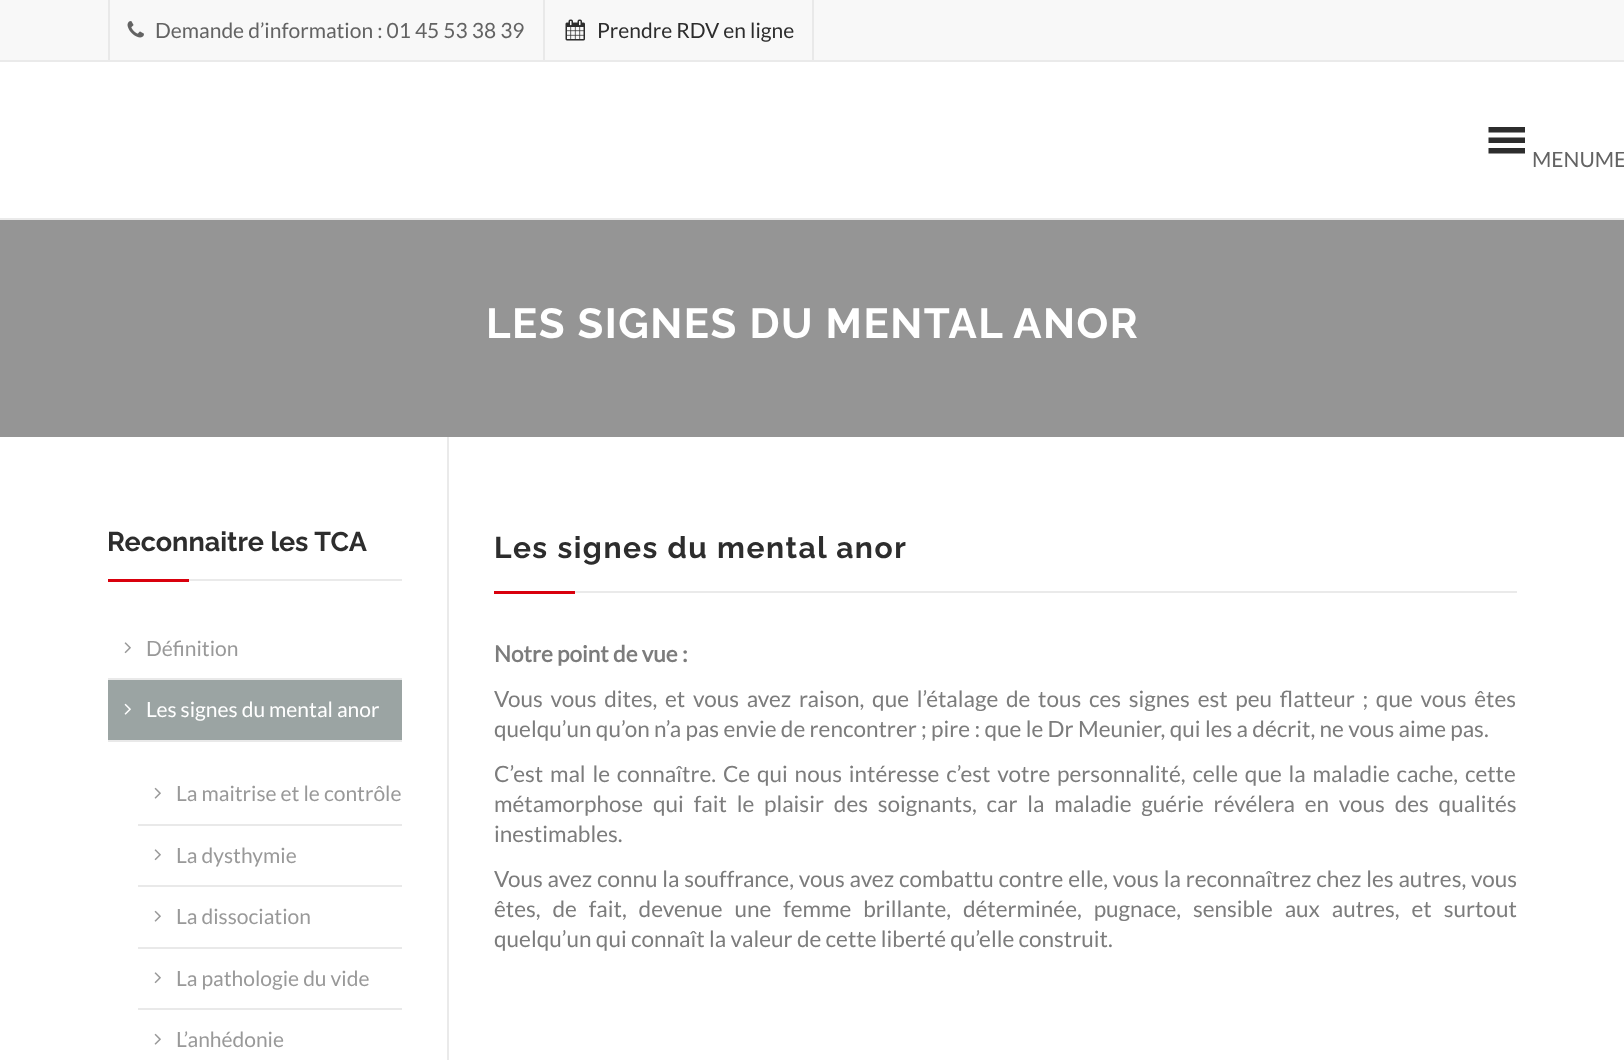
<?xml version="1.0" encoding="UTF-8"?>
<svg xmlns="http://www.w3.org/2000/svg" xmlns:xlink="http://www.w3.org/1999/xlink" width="1624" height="1060">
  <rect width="100%" height="100%" fill="#f8f8f8" />
  <rect y="60" width="1624" height="2" fill="#eaeaea" />
  <rect x="543" width="2" height="60" fill="#e9e9e9" />
  <rect x="108" width="2" height="60" fill="#e9e9e9" />
  <image x="127" y="21" width="17" height="17" xlink:href="image1.png" />
  <rect x="812" width="2" height="60" fill="#e9e9e9" />
  <image x="565" y="19" width="20" height="22" xlink:href="image2.png" />
  <rect y="62" width="1624" height="156" fill="#ffffff" />
  <path d="M 1488.5 153.5 h 36.5 v -5.5 h -36.5 z m 0 -26.5 v 5.5 h 36.5 v -5.5 z m 0 16 h 36.5 v -5.5 h -36.5 z" fill="#2d2d2d" />
  <rect y="218" width="1624" height="2" fill="#eaeaea" />
  <rect y="220" width="1624" height="217" fill="#959595" />
  <rect y="437" width="1624" height="623" fill="#ffffff" />
  <rect x="447" y="437" width="2" height="623" fill="#eaeaea" />
  <rect x="189" y="579" width="213" height="2" fill="#eaeaea" />
  <rect x="108" y="579" width="81" height="3" fill="#d9000d" />
  <rect x="108" y="678" width="294" height="2" fill="#e9e9e9" />
  <image x="124" y="642" width="7" height="12" xlink:href="image3.png" />
  <rect x="108" y="680" width="294" height="60" fill="#9ba4a3" />
  <rect x="108" y="740" width="294" height="2" fill="#e9e9e9" />
  <image x="124" y="703" width="7" height="12" xlink:href="image4.png" />
  <rect x="138" y="824" width="264" height="2" fill="#e9e9e9" />
  <image x="154" y="787" width="7" height="12" xlink:href="image5.png" />
  <rect x="138" y="885" width="264" height="2" fill="#e9e9e9" />
  <image x="154" y="849" width="7" height="12" xlink:href="image3.png" />
  <rect x="138" y="947" width="264" height="2" fill="#e9e9e9" />
  <image x="154" y="910" width="7" height="12" xlink:href="image5.png" />
  <rect x="138" y="1008" width="264" height="2" fill="#e9e9e9" />
  <image x="154" y="972" width="7" height="12" xlink:href="image3.png" />
  <image x="154" y="1033" width="7" height="12" xlink:href="image5.png" />
  <rect x="575" y="591" width="942" height="2" fill="#eaeaea" />
  <rect x="494" y="591" width="81" height="3" fill="#d9000d" />
  <text x="155" y="38" style="font-family: Lato; font-size: 21px; fill: #636363">Demande d’information : 01 45 53 38 39</text>
  <text x="597" y="38" style="font-family: Lato; font-size: 21px; fill: #2d2d2d">Prendre RDV en ligne</text>
  <text x="1532" y="167" style="font-family: Lato; font-size: 21px; fill: #636363">MENUME</text>
  <text x="486" y="338" style="font-family: Raleway; font-size: 42px; font-weight: 100; letter-spacing: 1.5px; fill: #ffffff">LES SIGNES DU MENTAL ANOR</text>
  <text x="107" y="551" style="font-family: Raleway; font-size: 27px; font-weight: 100; fill: #2d2d2d">Reconnaitre les TCA</text>
  <text x="146" y="656" style="font-family: Lato; font-size: 21px; fill: #999999">Définition</text>
  <text x="146" y="717" style="font-family: Lato; font-size: 21px; fill: #ffffff">Les signes du mental anor</text>
  <text x="176" y="801" style="font-family: Lato; font-size: 21px; fill: #999999">La maitrise et le contrôle</text>
  <text x="176" y="863" style="font-family: Lato; font-size: 21px; fill: #999999">La dysthymie</text>
  <text x="176" y="924" style="font-family: Lato; font-size: 21px; fill: #999999">La dissociation</text>
  <text x="176" y="986" style="font-family: Lato; font-size: 21px; fill: #999999">La pathologie du vide</text>
  <text x="176" y="1047" style="font-family: Lato; font-size: 21px; fill: #999999">L’anhédonie</text>
  <text x="494" y="558" style="font-family: Raleway; font-size: 30px; font-weight: 100; letter-spacing: 1.5px; fill: #2d2d2d">Les signes du mental anor</text>
  <text x="494" y="662" style="font-family: Lato; font-size: 22.5px; font-weight: bold; fill: #7c7c7c">Notre point de vue :</text>
  <text x="494" y="707" word-spacing="3.4" style="font-family: Lato; font-size: 22.5px; fill: #7c7c7c">Vous vous dites, et vous avez raison, que l’étalage de tous ces signes est peu flatteur ; que vous êtes</text>
  <text x="494" y="737" style="font-family: Lato; font-size: 22.5px; fill: #7c7c7c">quelqu’un qu’on n’a pas envie de rencontrer ; pire : que le Dr Meunier, qui les a décrit, ne vous aime pas.</text>
  <text x="494" y="782" word-spacing="2.5" style="font-family: Lato; font-size: 22.5px; fill: #7c7c7c">C’est mal le connaître. Ce qui nous intéresse c’est votre personnalité, celle que la maladie cache, cette</text>
  <text x="494" y="812" word-spacing="5.5" style="font-family: Lato; font-size: 22.5px; fill: #7c7c7c">métamorphose qui fait le plaisir des soignants, car la maladie guérie révélera en vous des qualités</text>
  <text x="494" y="842" style="font-family: Lato; font-size: 22.5px; fill: #7c7c7c">inestimables.</text>
  <text x="494" y="887" word-spacing="0.5" style="font-family: Lato; font-size: 22.5px; fill: #7c7c7c">Vous avez connu la souffrance, vous avez combattu contre elle, vous la reconnaîtrez chez les autres, vous</text>
  <text x="494" y="917" word-spacing="7.6" style="font-family: Lato; font-size: 22.5px; fill: #7c7c7c">êtes, de fait, devenue une femme brillante, déterminée, pugnace, sensible aux autres, et surtout</text>
  <text x="494" y="947" style="font-family: Lato; font-size: 22.5px; fill: #7c7c7c">quelqu’un qui connaît la valeur de cette liberté qu’elle construit.</text>
</svg>
